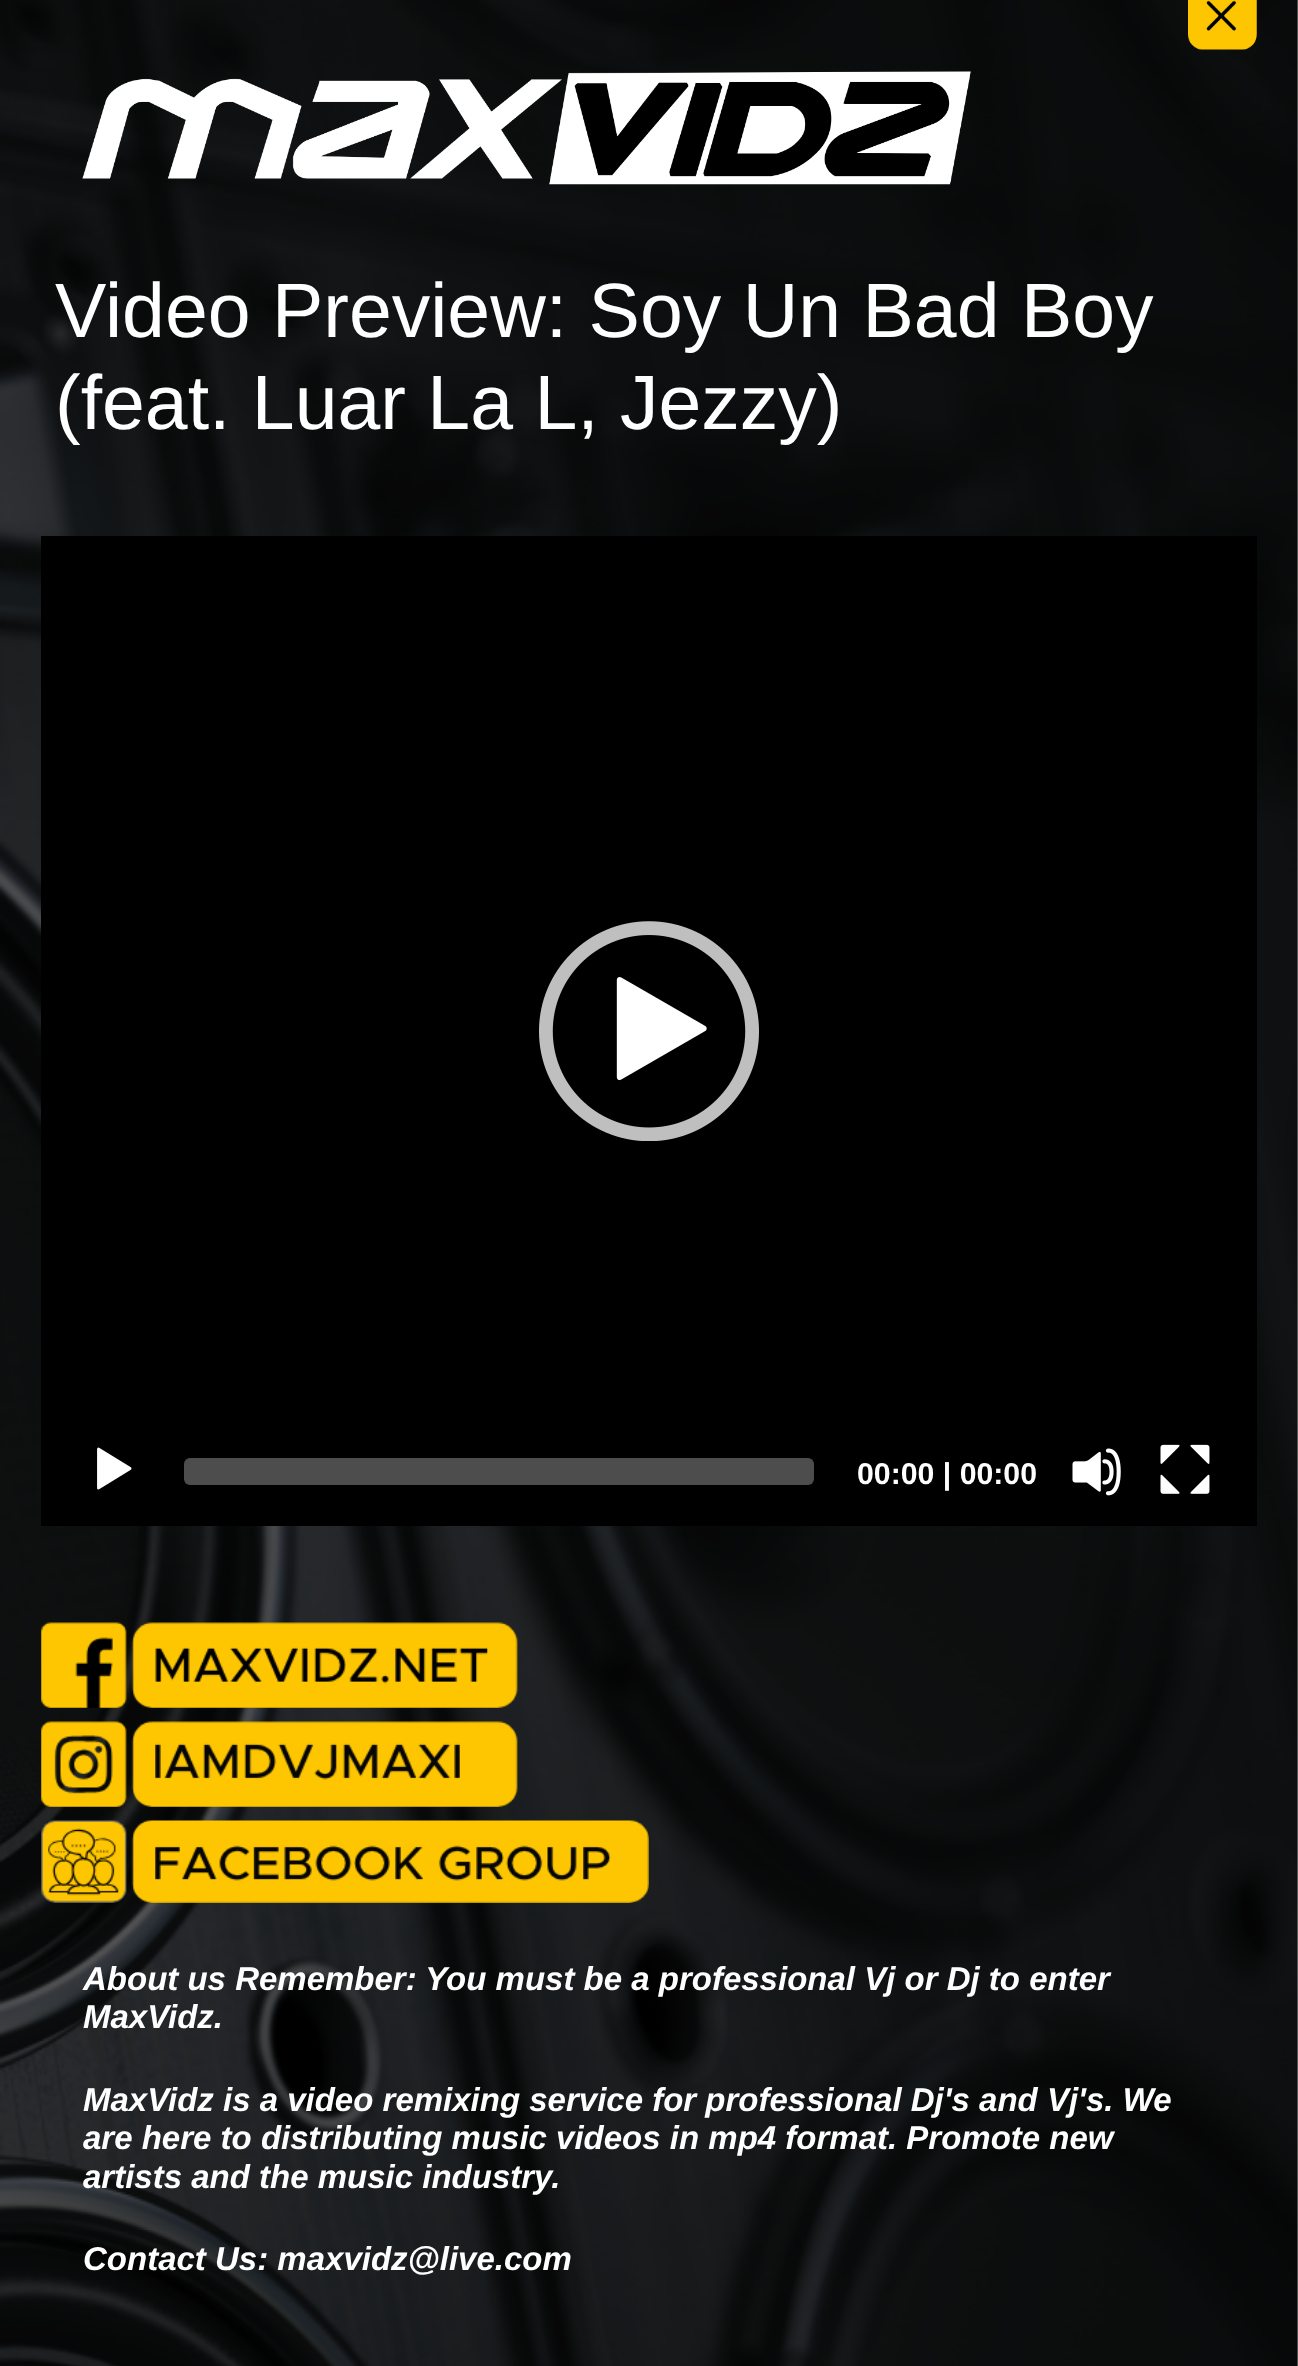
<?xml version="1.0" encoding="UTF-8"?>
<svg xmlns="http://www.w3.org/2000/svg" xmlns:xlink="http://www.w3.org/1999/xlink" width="1298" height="2366">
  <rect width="100%" height="100%" fill="#ffffff" />
  <image x="0" y="0" width="1298" height="2366" xlink:href="image1.png" />
  <image x="1188" y="0" width="69" height="50" xlink:href="image2.png" />
  <image x="82" y="71" width="889" height="114" xlink:href="image3.png" />
  <rect x="41" y="536" width="1216" height="990" fill="#000000" />
  <image x="539" y="921" width="220" height="220" xlink:href="image4.png" />
  <image x="97" y="1447" width="35" height="43" xlink:href="image5.png" />
  <rect x="184" y="1458" width="630" height="27" rx="6" fill="#4d4d4d" />
  <image x="1072" y="1448" width="49" height="48" xlink:href="image6.png" />
  <image x="1160" y="1444" width="50" height="50" xlink:href="image7.png" />
  <image x="41" y="1622" width="477" height="86" xlink:href="image8.png" />
  <image x="41" y="1721" width="477" height="86" xlink:href="image9.png" />
  <image x="41" y="1820" width="608" height="83" xlink:href="image10.png" />
  <text x="55" y="337" style="font-family: Liberation Sans; font-size: 77px; fill: #ffffff">Video Preview: Soy Un Bad Boy</text>
  <text x="55" y="429" style="font-family: Liberation Sans; font-size: 77px; fill: #ffffff">(feat. Luar La L, Jezzy)</text>
  <text x="857" y="1484" style="font-family: Liberation Sans; font-size: 30.25px; font-weight: bold; fill: #ffffff">00:00 | 00:00</text>
  <text x="83" y="1990" style="font-family: Liberation Sans; font-size: 33px; font-weight: bold; font-style: italic; fill: #ffffff">About us Remember: You must be a professional Vj or Dj to enter</text>
  <text x="83" y="2028" style="font-family: Liberation Sans; font-size: 33px; font-weight: bold; font-style: italic; fill: #ffffff">MaxVidz.</text>
  <text x="83" y="2111" style="font-family: Liberation Sans; font-size: 33px; font-weight: bold; font-style: italic; fill: #ffffff">MaxVidz is a video remixing service for professional Dj's and Vj's. We</text>
  <text x="83" y="2149" style="font-family: Liberation Sans; font-size: 33px; font-weight: bold; font-style: italic; fill: #ffffff">are here to distributing music videos in mp4 format. Promote new</text>
  <text x="83" y="2188" style="font-family: Liberation Sans; font-size: 33px; font-weight: bold; font-style: italic; fill: #ffffff">artists and the music industry.</text>
  <text x="83" y="2270" style="font-family: Liberation Sans; font-size: 33px; font-weight: bold; font-style: italic; fill: #ffffff">Contact Us: maxvidz@live.com</text>
</svg>
